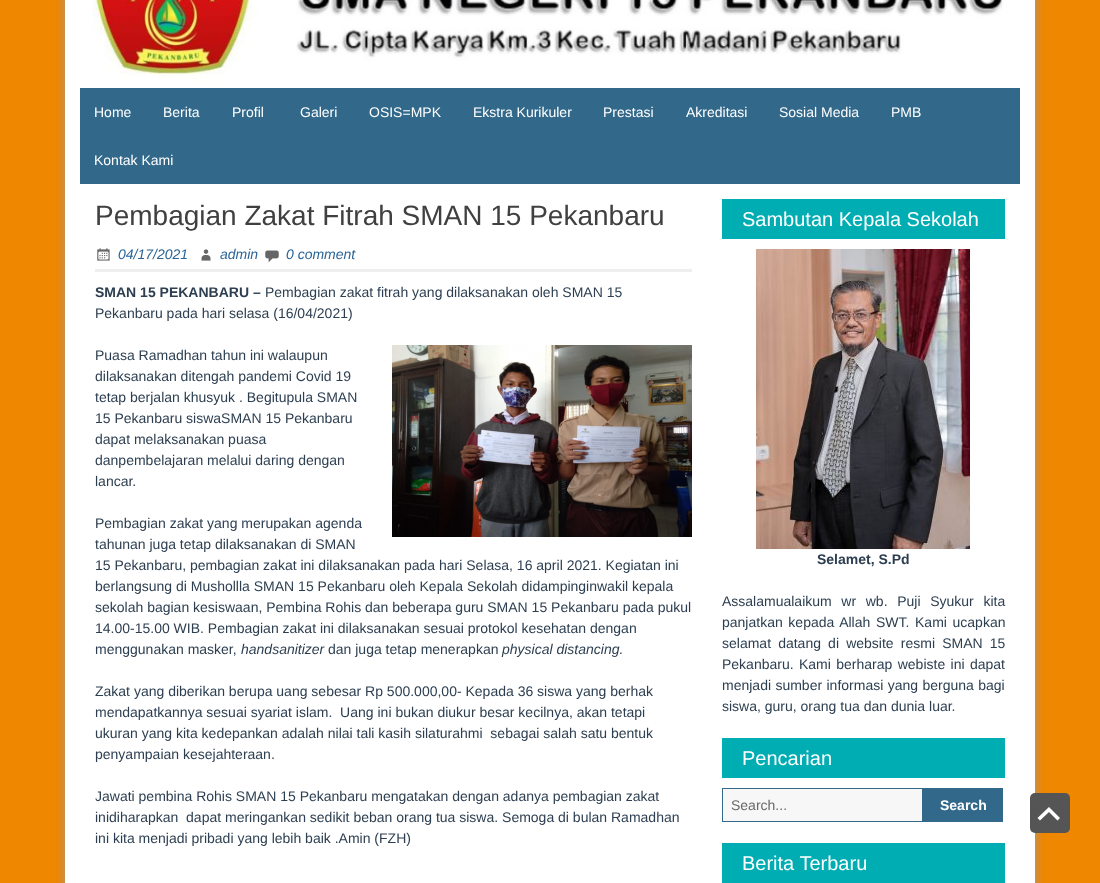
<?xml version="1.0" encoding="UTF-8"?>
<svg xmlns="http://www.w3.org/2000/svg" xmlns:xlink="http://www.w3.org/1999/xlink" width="1100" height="883">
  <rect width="100%" height="100%" fill="#ef8700" />
  <rect x="65" y="-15" width="970" height="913" fill="#999999" filter="blur(5px)" />
  <rect x="65" width="970" height="883" fill="#ffffff" />
  <image x="80" y="0" width="940" height="88" xlink:href="image1.png" />
  <rect x="80" y="88" width="940" height="96" fill="#32698b" />
  <rect x="95" y="269" width="597" height="3" fill="#eeeeee" />
  <image x="97" y="248" width="13" height="13" xlink:href="image2.png" />
  <image x="201" y="249" width="10" height="12" xlink:href="image3.png" />
  <image x="265" y="250" width="14" height="13" xlink:href="image4.png" />
  <image x="392" y="345" width="300" height="192" xlink:href="image5.png" />
  <rect x="722" y="199" width="283" height="40" fill="#00adb3" />
  <image x="756" y="249" width="214" height="300" xlink:href="image6.png" />
  <rect x="722" y="738" width="283" height="40" fill="#00adb3" />
  <rect x="722.5" y="788.5" width="200" height="33" fill="#f7f7f7" stroke="#32698b" />
  <rect x="923" y="788" width="80" height="34" fill="#32698b" />
  <rect x="722" y="843" width="283" height="40" fill="#00adb3" />
  <rect x="1030" y="793" width="40" height="40" rx="5" fill="#555555" />
  <path d="M 1057.5 820.5 l -8.5 -8.5 l -9 8.5 l -2.5 -2.5 l 11.5 -11 l 11 11 z" fill="#ffffff" />
  <text x="94" y="117" style="font-family: Liberation Sans; font-size: 14px; fill: #ffffff">Home</text>
  <text x="163" y="117" style="font-family: Liberation Sans; font-size: 14px; fill: #ffffff">Berita</text>
  <text x="232" y="117" style="font-family: Liberation Sans; font-size: 14px; fill: #ffffff">Profil</text>
  <text x="300" y="117" style="font-family: Liberation Sans; font-size: 14px; fill: #ffffff">Galeri</text>
  <text x="369" y="117" style="font-family: Liberation Sans; font-size: 14px; fill: #ffffff">OSIS=MPK</text>
  <text x="473" y="117" style="font-family: Liberation Sans; font-size: 14px; fill: #ffffff">Ekstra Kurikuler</text>
  <text x="603" y="117" style="font-family: Liberation Sans; font-size: 14px; fill: #ffffff">Prestasi</text>
  <text x="686" y="117" style="font-family: Liberation Sans; font-size: 14px; fill: #ffffff">Akreditasi</text>
  <text x="779" y="117" style="font-family: Liberation Sans; font-size: 14px; fill: #ffffff">Sosial Media</text>
  <text x="891" y="117" style="font-family: Liberation Sans; font-size: 14px; fill: #ffffff">PMB</text>
  <text x="94" y="165" style="font-family: Liberation Sans; font-size: 14px; fill: #ffffff">Kontak Kami</text>
  <text x="95" y="225" style="font-family: Liberation Sans; font-size: 28px; fill: #404040">Pembagian Zakat Fitrah SMAN 15 Pekanbaru</text>
  <text x="118" y="259" style="font-family: Liberation Sans; font-size: 14px; font-style: italic; fill: #2a6496">04/17/2021</text>
  <text x="220" y="259" style="font-family: Liberation Sans; font-size: 14px; font-style: italic; fill: #2a6496">admin</text>
  <text x="286" y="259" style="font-family: Liberation Sans; font-size: 14px; font-style: italic; fill: #2a6496">0 comment</text>
  <text x="95" y="297" style="font-family: Liberation Sans; font-size: 14px; font-weight: bold; fill: #2c3e50">SMAN 15 PEKANBARU –</text>
  <text x="265" y="297" style="font-family: Liberation Sans; font-size: 14px; fill: #2c3e50">Pembagian zakat fitrah yang dilaksanakan oleh SMAN 15</text>
  <text x="95" y="318" style="font-family: Liberation Sans; font-size: 14px; fill: #2c3e50">Pekanbaru pada hari selasa (16/04/2021)</text>
  <text x="95" y="360" style="font-family: Liberation Sans; font-size: 14px; fill: #2c3e50">Puasa Ramadhan tahun ini walaupun</text>
  <text x="95" y="381" style="font-family: Liberation Sans; font-size: 14px; fill: #2c3e50">dilaksanakan ditengah pandemi Covid 19</text>
  <text x="95" y="402" style="font-family: Liberation Sans; font-size: 14px; fill: #2c3e50">tetap berjalan khusyuk . Begitupula SMAN</text>
  <text x="95" y="423" style="font-family: Liberation Sans; font-size: 14px; fill: #2c3e50">15 Pekanbaru siswaSMAN 15 Pekanbaru</text>
  <text x="95" y="444" style="font-family: Liberation Sans; font-size: 14px; fill: #2c3e50">dapat melaksanakan puasa</text>
  <text x="95" y="465" style="font-family: Liberation Sans; font-size: 14px; fill: #2c3e50">danpembelajaran melalui daring dengan</text>
  <text x="95" y="486" style="font-family: Liberation Sans; font-size: 14px; fill: #2c3e50">lancar.</text>
  <text x="95" y="528" style="font-family: Liberation Sans; font-size: 14px; fill: #2c3e50">Pembagian zakat yang merupakan agenda</text>
  <text x="95" y="549" style="font-family: Liberation Sans; font-size: 14px; fill: #2c3e50">tahunan juga tetap dilaksanakan di SMAN</text>
  <text x="95" y="570" style="font-family: Liberation Sans; font-size: 14px; fill: #2c3e50">15 Pekanbaru, pembagian zakat ini dilaksanakan pada hari Selasa, 16 april 2021. Kegiatan ini</text>
  <text x="95" y="591" style="font-family: Liberation Sans; font-size: 14px; fill: #2c3e50">berlangsung di Mushollla SMAN 15 Pekanbaru oleh Kepala Sekolah didampinginwakil kepala</text>
  <text x="95" y="612" style="font-family: Liberation Sans; font-size: 14px; fill: #2c3e50">sekolah bagian kesiswaan, Pembina Rohis dan beberapa guru SMAN 15 Pekanbaru pada pukul</text>
  <text x="95" y="633" style="font-family: Liberation Sans; font-size: 14px; fill: #2c3e50">14.00-15.00 WIB. Pembagian zakat ini dilaksanakan sesuai protokol kesehatan dengan</text>
  <text x="95" y="654" style="font-family: Liberation Sans; font-size: 14px; fill: #2c3e50">menggunakan masker,</text>
  <text x="241" y="654" style="font-family: Liberation Sans; font-size: 14px; font-style: italic; fill: #2c3e50">handsanitizer</text>
  <text x="328" y="654" style="font-family: Liberation Sans; font-size: 14px; fill: #2c3e50">dan juga tetap menerapkan</text>
  <text x="502" y="654" style="font-family: Liberation Sans; font-size: 14px; font-style: italic; fill: #2c3e50">physical distancing.</text>
  <text x="95" y="696" style="font-family: Liberation Sans; font-size: 14px; fill: #2c3e50">Zakat yang diberikan berupa uang sebesar Rp 500.000,00- Kepada 36 siswa yang berhak</text>
  <text x="95" y="717" style="font-family: Liberation Sans; font-size: 14px; fill: #2c3e50" xml:space="preserve">mendapatkannya sesuai syariat islam.  Uang ini bukan diukur besar kecilnya, akan tetapi</text>
  <text x="95" y="738" style="font-family: Liberation Sans; font-size: 14px; fill: #2c3e50" xml:space="preserve">ukuran yang kita kedepankan adalah nilai tali kasih silaturahmi  sebagai salah satu bentuk</text>
  <text x="95" y="759" style="font-family: Liberation Sans; font-size: 14px; fill: #2c3e50">penyampaian kesejahteraan.</text>
  <text x="95" y="801" style="font-family: Liberation Sans; font-size: 14px; fill: #2c3e50">Jawati pembina Rohis SMAN 15 Pekanbaru mengatakan dengan adanya pembagian zakat</text>
  <text x="95" y="822" style="font-family: Liberation Sans; font-size: 14px; fill: #2c3e50" xml:space="preserve">inidiharapkan  dapat meringankan sedikit beban orang tua siswa. Semoga di bulan Ramadhan</text>
  <text x="95" y="843" style="font-family: Liberation Sans; font-size: 14px; fill: #2c3e50">ini kita menjadi pribadi yang lebih baik .Amin (FZH)</text>
  <text x="742" y="226" style="font-family: Liberation Sans; font-size: 20px; fill: #ffffff">Sambutan Kepala Sekolah</text>
  <text x="817" y="564" style="font-family: Liberation Sans; font-size: 14px; font-weight: bold; fill: #2c3e50">Selamet, S.Pd</text>
  <text x="722" y="606" word-spacing="5.75" style="font-family: Liberation Sans; font-size: 14px; fill: #2c3e50">Assalamualaikum wr wb. Puji Syukur kita</text>
  <text x="722" y="627" word-spacing="1.75" style="font-family: Liberation Sans; font-size: 14px; fill: #2c3e50">panjatkan kepada Allah SWT. Kami ucapkan</text>
  <text x="722" y="648" word-spacing="3.25" style="font-family: Liberation Sans; font-size: 14px; fill: #2c3e50">selamat datang di website resmi SMAN 15</text>
  <text x="722" y="669" word-spacing="1.5" style="font-family: Liberation Sans; font-size: 14px; fill: #2c3e50">Pekanbaru. Kami berharap webiste ini dapat</text>
  <text x="722" y="690" word-spacing="0.5" style="font-family: Liberation Sans; font-size: 14px; fill: #2c3e50">menjadi sumber informasi yang berguna bagi</text>
  <text x="722" y="711" style="font-family: Liberation Sans; font-size: 14px; fill: #2c3e50">siswa, guru, orang tua dan dunia luar.</text>
  <text x="742" y="765" style="font-family: Liberation Sans; font-size: 20px; fill: #ffffff">Pencarian</text>
  <text x="731" y="810" style="font-family: Liberation Sans; font-size: 14px; fill: #686868">Search...</text>
  <text x="940" y="810" style="font-family: Liberation Sans; font-size: 14px; font-weight: bold; fill: #ffffff">Search</text>
  <text x="742" y="870" style="font-family: Liberation Sans; font-size: 20px; fill: #ffffff">Berita Terbaru</text>
</svg>
